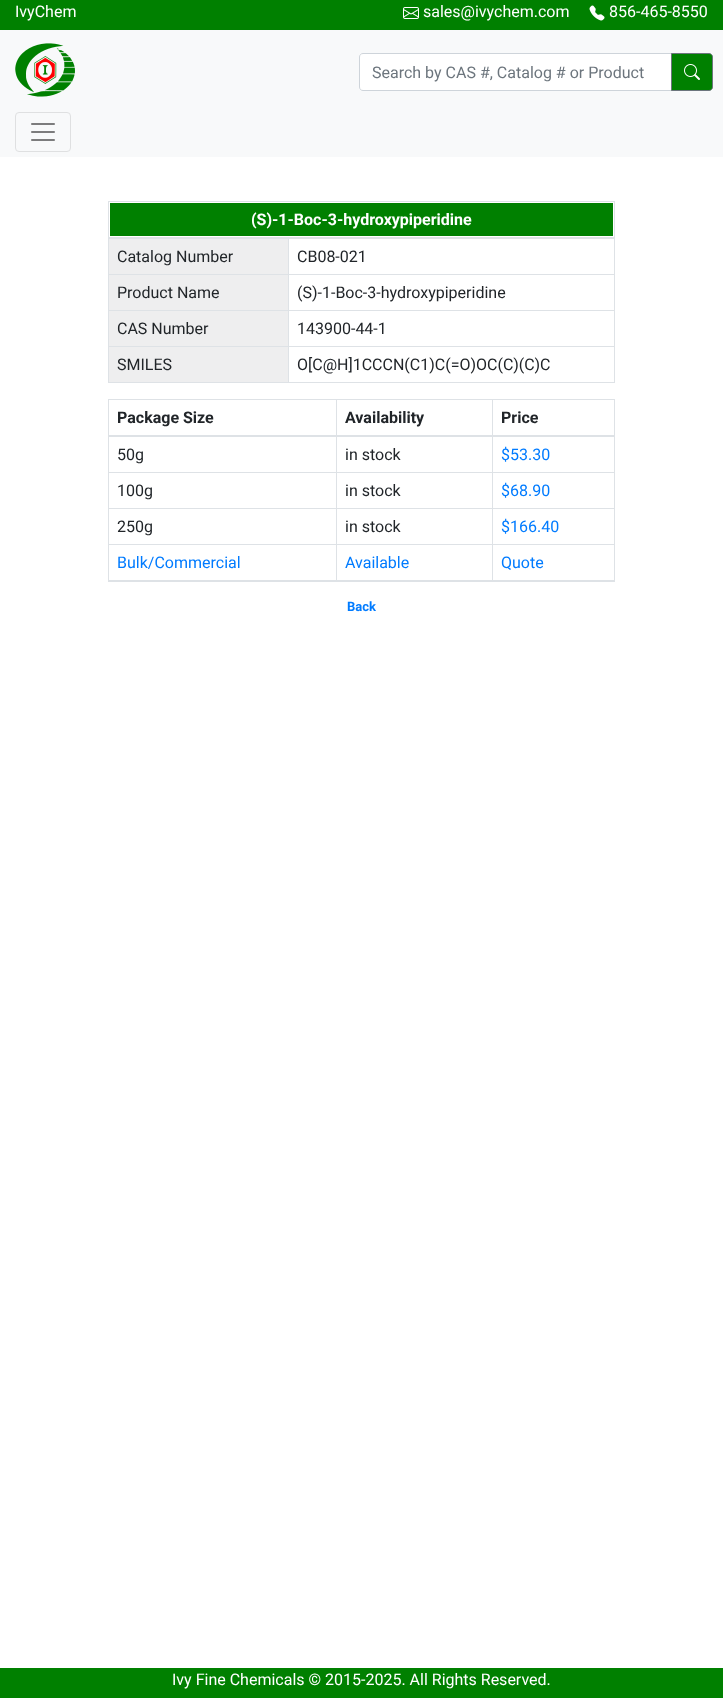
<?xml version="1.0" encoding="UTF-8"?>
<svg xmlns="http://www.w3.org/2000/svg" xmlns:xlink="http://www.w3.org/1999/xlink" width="723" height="1698">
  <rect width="100%" height="100%" fill="#ffffff" />
  <rect width="723" height="30" fill="#008000" />
  <image x="403" y="7" width="16" height="12" xlink:href="image1.png" />
  <image x="589" y="5" width="16" height="16" xlink:href="image2.png" />
  <rect y="30" width="723" height="127" fill="#f8f9fa" />
  <image x="15" y="43" width="60" height="54" xlink:href="image3.png" />
  <path d="M 363 53.5 h 308.5 v 37 h -308.5 c -2 0 -3.5 -1.5 -3.5 -3.5 v -30 c 0 -2 1.5 -3.5 3.5 -3.5 z" fill="#ffffff" stroke="#ced4da" />
  <path d="M 671.5 53.5 h 37.5 c 2 0 3.5 1.5 3.5 3.5 v 30 c 0 2 -1.5 3.5 -3.5 3.5 h -37.5 z" fill="#008000" stroke="#6c757d" />
  <image x="684" y="64" width="16" height="16" xlink:href="image4.png" />
  <rect x="15.5" y="112.5" width="55" height="39" rx="3.5" fill="none" stroke="#dfe0e1" />
  <image x="31" y="123" width="24" height="18" xlink:href="image5.png" />
  <rect x="108" y="201" width="507" height="1" fill="#dee2e6" />
  <rect x="614" y="201" width="1" height="182" fill="#dee2e6" />
  <rect x="108" y="382" width="507" height="1" fill="#dee2e6" />
  <rect x="108" y="201" width="1" height="182" fill="#dee2e6" />
  <rect x="110" y="203" width="503" height="33" fill="#008000" />
  <rect x="288" y="274" width="327" height="1" fill="#dee2e6" />
  <rect x="288" y="310" width="327" height="1" fill="#dee2e6" />
  <rect x="288" y="346" width="327" height="1" fill="#dee2e6" />
  <rect x="288" y="346" width="1" height="37" fill="#dee2e6" />
  <rect x="108" y="346" width="181" height="1" fill="#dee2e6" />
  <rect x="288" y="310" width="1" height="37" fill="#dee2e6" />
  <rect x="108" y="310" width="181" height="1" fill="#dee2e6" />
  <rect x="288" y="274" width="1" height="37" fill="#dee2e6" />
  <rect x="108" y="274" width="181" height="1" fill="#dee2e6" />
  <rect x="288" y="238" width="1" height="37" fill="#dee2e6" />
  <rect x="108" y="237" width="507" height="2" fill="#dee2e6" />
  <rect x="109" y="239" width="179" height="35" fill="#eeeeef" />
  <rect x="109" y="275" width="179" height="35" fill="#eeeeef" />
  <rect x="109" y="311" width="179" height="35" fill="#eeeeef" />
  <rect x="109" y="347" width="179" height="35" fill="#eeeeef" />
  <rect x="108" y="399" width="507" height="1" fill="#dee2e6" />
  <rect x="614" y="399" width="1" height="182" fill="#dee2e6" />
  <rect x="108" y="399" width="1" height="182" fill="#dee2e6" />
  <rect x="492" y="472" width="123" height="1" fill="#dee2e6" />
  <rect x="492" y="508" width="123" height="1" fill="#dee2e6" />
  <rect x="492" y="544" width="123" height="1" fill="#dee2e6" />
  <rect x="492" y="544" width="1" height="37" fill="#dee2e6" />
  <rect x="336" y="544" width="157" height="1" fill="#dee2e6" />
  <rect x="492" y="508" width="1" height="37" fill="#dee2e6" />
  <rect x="336" y="508" width="157" height="1" fill="#dee2e6" />
  <rect x="492" y="472" width="1" height="37" fill="#dee2e6" />
  <rect x="336" y="472" width="157" height="1" fill="#dee2e6" />
  <rect x="336" y="544" width="1" height="37" fill="#dee2e6" />
  <rect x="108" y="544" width="229" height="1" fill="#dee2e6" />
  <rect x="336" y="508" width="1" height="37" fill="#dee2e6" />
  <rect x="108" y="508" width="229" height="1" fill="#dee2e6" />
  <rect x="336" y="472" width="1" height="37" fill="#dee2e6" />
  <rect x="108" y="472" width="229" height="1" fill="#dee2e6" />
  <rect x="336" y="399" width="1" height="74" fill="#dee2e6" />
  <rect x="492" y="399" width="1" height="74" fill="#dee2e6" />
  <rect x="108" y="435" width="507" height="2" fill="#dee2e6" />
  <rect x="108" y="580" width="507" height="2" fill="#dee2e6" />
  <rect y="1668" width="723" height="30" fill="#008000" />
  <text x="15" y="17" style="font-family: Roboto; font-size: 16px; fill: #ffffff">IvyChem</text>
  <text x="423" y="17" style="font-family: Roboto; font-size: 16px; fill: #ffffff">sales@ivychem.com</text>
  <text x="609" y="17" style="font-family: Roboto; font-size: 16px; fill: #ffffff">856-465-8550</text>
  <text x="372" y="78" style="font-family: Roboto; font-size: 16px; fill: #6c757d">Search by CAS #, Catalog # or Product</text>
  <text x="251" y="225" style="font-family: Roboto; font-size: 16px; font-weight: bold; fill: #ffffff">(S)-1-Boc-3-hydroxypiperidine</text>
  <text x="117" y="262" style="font-family: Roboto; font-size: 16px; fill: #212529">Catalog Number</text>
  <text x="297" y="262" style="font-family: Roboto; font-size: 16px; fill: #212529">CB08-021</text>
  <text x="117" y="298" style="font-family: Roboto; font-size: 16px; fill: #212529">Product Name</text>
  <text x="297" y="298" style="font-family: Roboto; font-size: 16px; fill: #212529">(S)-1-Boc-3-hydroxypiperidine</text>
  <text x="117" y="334" style="font-family: Roboto; font-size: 16px; fill: #212529">CAS Number</text>
  <text x="297" y="334" style="font-family: Roboto; font-size: 16px; fill: #212529">143900-44-1</text>
  <text x="117" y="370" style="font-family: Roboto; font-size: 16px; fill: #212529">SMILES</text>
  <text x="297" y="370" style="font-family: Roboto; font-size: 16px; fill: #212529">O[C@H]1CCCN(C1)C(=O)OC(C)(C)C</text>
  <text x="117" y="423" style="font-family: Roboto; font-size: 16px; font-weight: bold; fill: #212529">Package Size</text>
  <text x="345" y="423" style="font-family: Roboto; font-size: 16px; font-weight: bold; fill: #212529">Availability</text>
  <text x="501" y="423" style="font-family: Roboto; font-size: 16px; font-weight: bold; fill: #212529">Price</text>
  <text x="117" y="460" style="font-family: Roboto; font-size: 16px; fill: #212529">50g</text>
  <text x="345" y="460" style="font-family: Roboto; font-size: 16px; fill: #212529">in stock</text>
  <text x="501" y="460" style="font-family: Roboto; font-size: 16px; fill: #007bff">$53.30</text>
  <text x="117" y="496" style="font-family: Roboto; font-size: 16px; fill: #212529">100g</text>
  <text x="345" y="496" style="font-family: Roboto; font-size: 16px; fill: #212529">in stock</text>
  <text x="501" y="496" style="font-family: Roboto; font-size: 16px; fill: #007bff">$68.90</text>
  <text x="117" y="532" style="font-family: Roboto; font-size: 16px; fill: #212529">250g</text>
  <text x="345" y="532" style="font-family: Roboto; font-size: 16px; fill: #212529">in stock</text>
  <text x="501" y="532" style="font-family: Roboto; font-size: 16px; fill: #007bff">$166.40</text>
  <text x="117" y="568" style="font-family: Roboto; font-size: 16px; fill: #007bff">Bulk/Commercial</text>
  <text x="345" y="568" style="font-family: Roboto; font-size: 16px; fill: #007bff">Available</text>
  <text x="501" y="568" style="font-family: Roboto; font-size: 16px; fill: #007bff">Quote</text>
  <text x="347" y="611" style="font-family: Roboto; font-size: 13px; font-weight: bold; fill: #007bff">Back</text>
  <text x="172" y="1685" style="font-family: Roboto; font-size: 16px; fill: #ffffff">Ivy Fine Chemicals © 2015-2025. All Rights Reserved.</text>
</svg>
